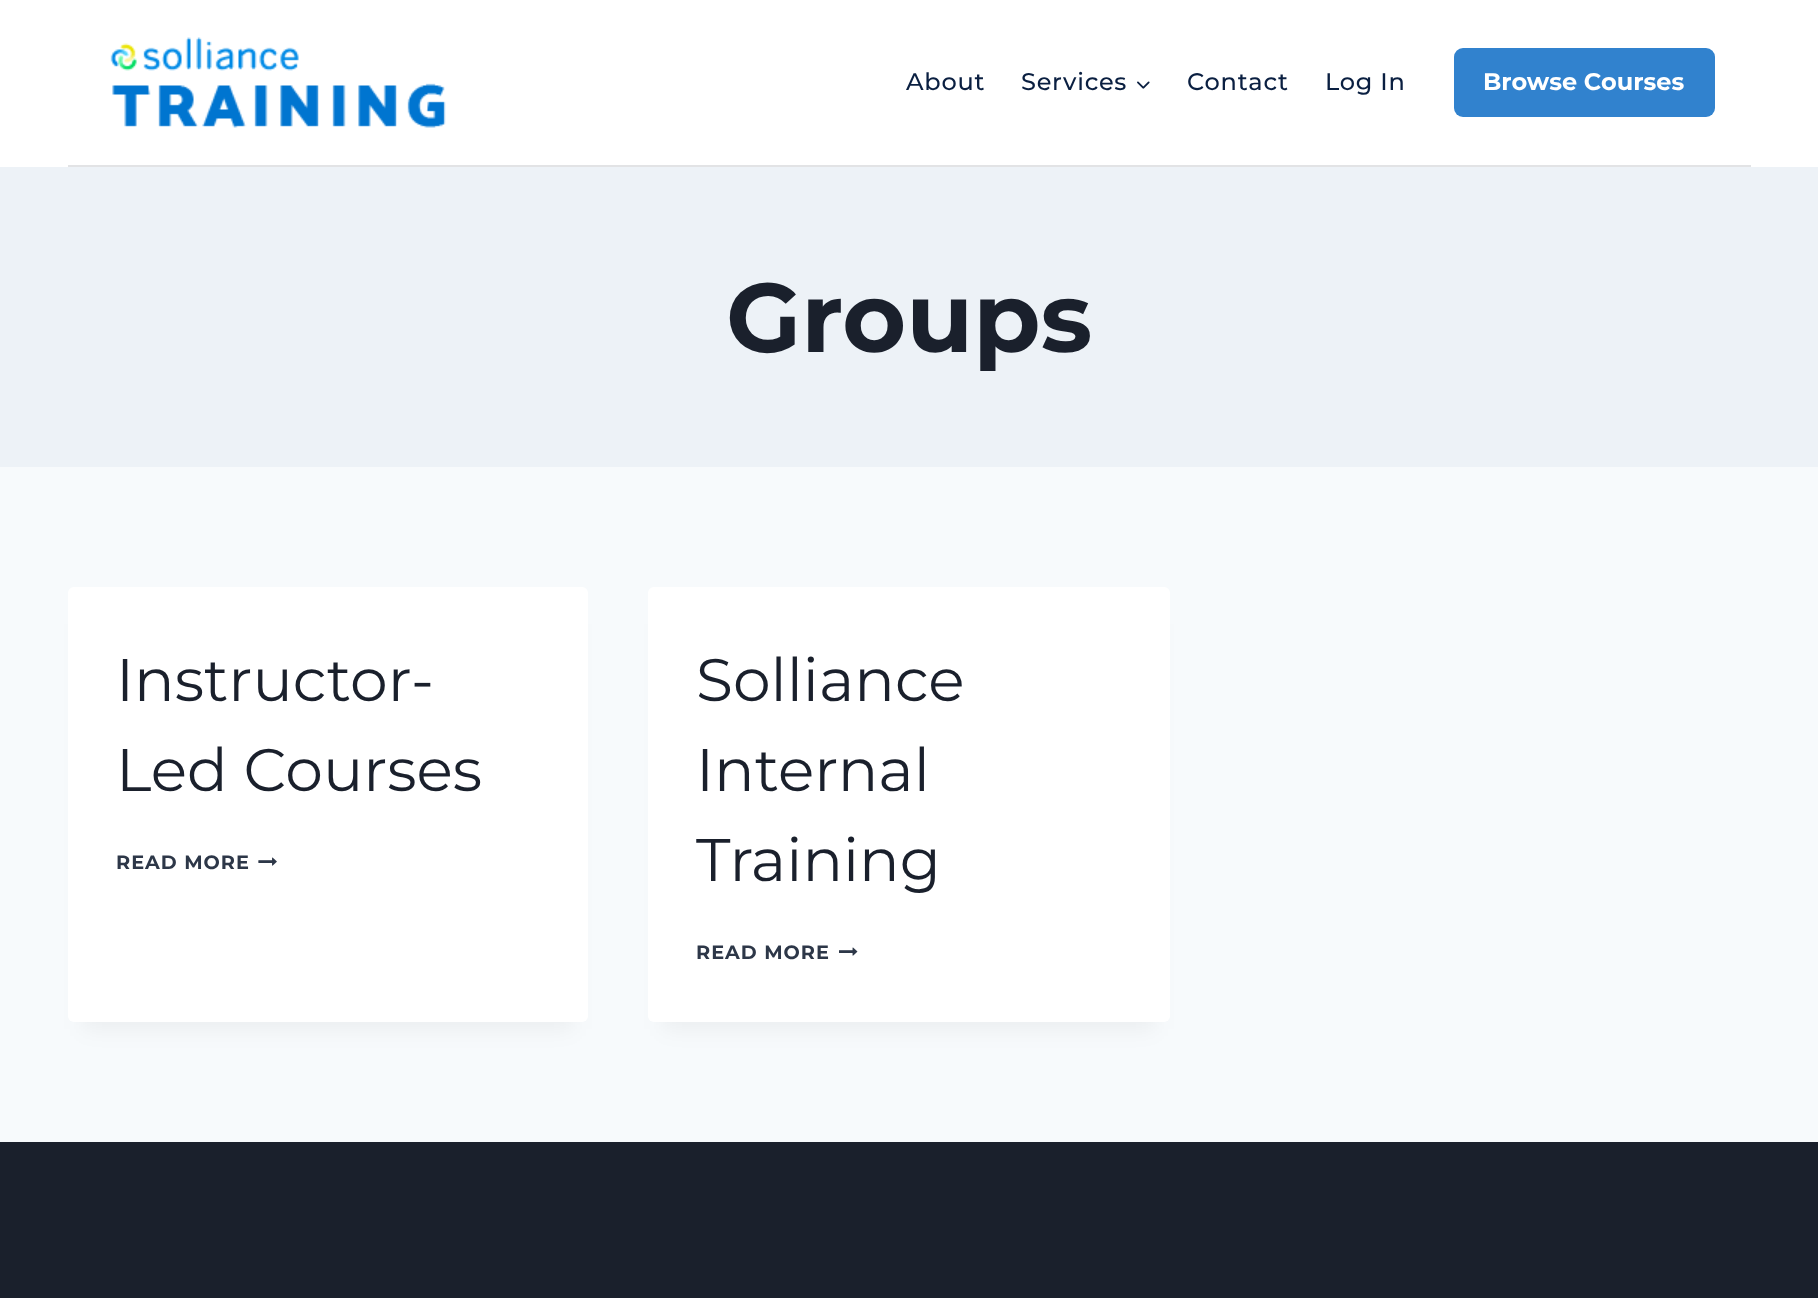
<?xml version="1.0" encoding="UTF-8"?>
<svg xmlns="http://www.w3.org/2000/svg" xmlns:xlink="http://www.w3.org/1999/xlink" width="1818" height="1298">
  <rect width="100%" height="100%" fill="#f7fafc" />
  <rect width="1818" height="167" fill="#ffffff" />
  <rect x="68" y="165" width="1683" height="2" fill="#e2e3e5" />
  <image x="110" y="37" width="336" height="91" xlink:href="image1.png" />
  <image x="1137" y="81" width="13" height="8" xlink:href="image2.png" />
  <rect x="1454" y="48" width="261" height="69" rx="9" fill="#3182ce" />
  <rect y="167" width="1818" height="300" fill="#edf2f7" />
  <rect x="83" y="624" width="490" height="405" fill="#000000" fill-opacity="0.05" filter="blur(11px)" />
  <rect x="68" y="587" width="520" height="435" rx="6" fill="#ffffff" />
  <image x="258" y="857" width="19" height="9" xlink:href="image3.png" />
  <rect x="663" y="624" width="492" height="405" fill="#000000" fill-opacity="0.05" filter="blur(11px)" />
  <rect x="648" y="587" width="522" height="435" rx="6" fill="#ffffff" />
  <image x="839" y="947" width="19" height="9" xlink:href="image4.png" />
  <rect y="1142" width="1818" height="156" fill="#1a202c" />
  <text x="906" y="90" style="font-family: Montserrat; font-size: 24px; font-weight: 500; letter-spacing: 0.75px; fill: #0a1f41">About</text>
  <text x="1021" y="90" style="font-family: Montserrat; font-size: 24px; font-weight: 500; letter-spacing: 0.75px; fill: #0a1f41">Services</text>
  <text x="1187" y="90" style="font-family: Montserrat; font-size: 24px; font-weight: 500; letter-spacing: 0.75px; fill: #0a1f41">Contact</text>
  <text x="1325" y="90" style="font-family: Montserrat; font-size: 24px; font-weight: 500; letter-spacing: 0.75px; fill: #0a1f41">Log In</text>
  <text x="1483" y="90" style="font-family: Montserrat; font-size: 24px; font-weight: bold; fill: #ffffff">Browse Courses</text>
  <text x="726" y="352" style="font-family: Montserrat; font-size: 97.5px; font-weight: bold; fill: #1a202c">Groups</text>
  <text x="116" y="701" style="font-family: Montserrat; font-size: 60px; fill: #1a202c">Instructor-</text>
  <text x="116" y="791" style="font-family: Montserrat; font-size: 60px; fill: #1a202c">Led Courses</text>
  <text x="116" y="869" style="font-family: Montserrat; font-size: 19.25px; font-weight: bold; letter-spacing: 1px; fill: #2d3748">READ MORE</text>
  <text x="696" y="701" style="font-family: Montserrat; font-size: 60px; fill: #1a202c">Solliance</text>
  <text x="696" y="791" style="font-family: Montserrat; font-size: 60px; fill: #1a202c">Internal</text>
  <text x="696" y="881" style="font-family: Montserrat; font-size: 60px; fill: #1a202c">Training</text>
  <text x="696" y="959" style="font-family: Montserrat; font-size: 19.25px; font-weight: bold; letter-spacing: 1px; fill: #2d3748">READ MORE</text>
</svg>
